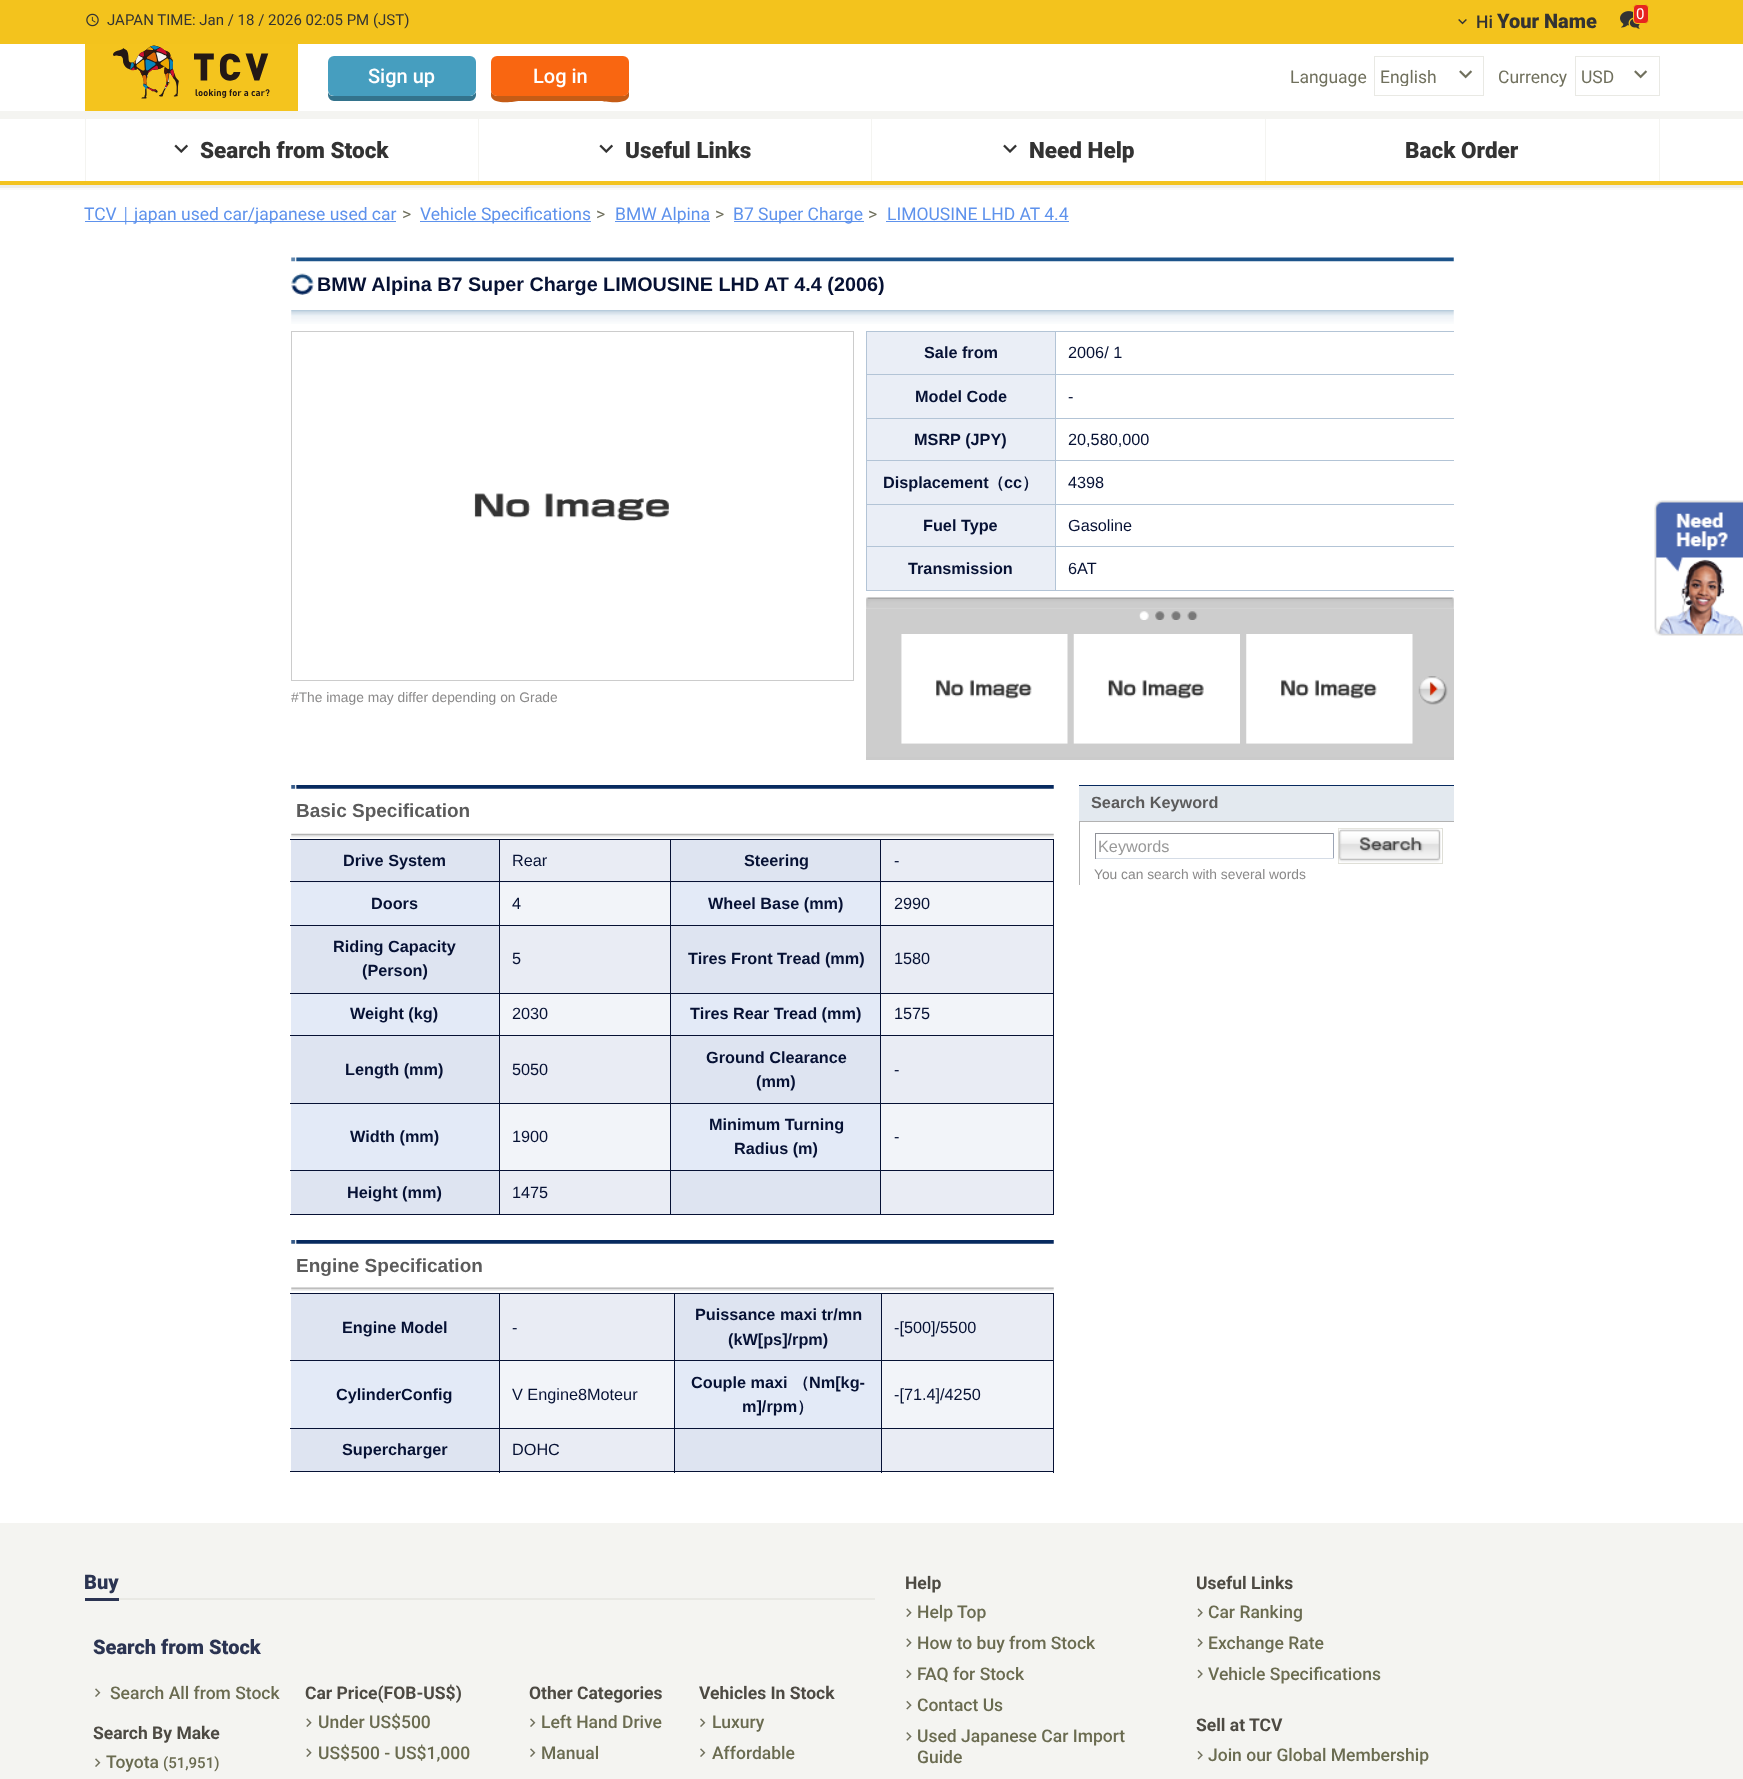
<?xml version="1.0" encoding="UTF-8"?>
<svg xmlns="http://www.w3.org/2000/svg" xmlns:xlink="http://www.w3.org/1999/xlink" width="1743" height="1779">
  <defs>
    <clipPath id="clip1"><rect x="1380" y="66" width="98" height="20" /></clipPath>
    <clipPath id="clip2"><rect x="1099" y="836" width="231" height="19" /></clipPath>
  </defs>
  <rect width="100%" height="100%" fill="#ffffff" />
  <rect width="1743" height="44" fill="#f3c31d" />
  <image x="86" y="13" width="13" height="14" xlink:href="image1.png" />
  <image x="1458" y="19" width="9" height="6" xlink:href="image2.png" />
  <image x="1620" y="11" width="20" height="18" xlink:href="image3.png" />
  <rect x="1633.5" y="4.5" width="15" height="19" rx="3.5" fill="#e7251f" stroke="#f3c31d" />
  <rect x="85" y="44" width="213" height="67" fill="#f4c41e" />
  <image x="113" y="45" width="157" height="54" xlink:href="image4.png" />
  <path d="M 328 92 v 3 c 0 3 3 6 6 6 h 136 c 3 0 6 -3 6 -6 v -3 c -1 2 -3 4 -6 4 h -136 c -3 0 -5 -1 -6 -4 z" fill="#33738c" />
  <rect x="328" y="56" width="148" height="40" rx="6" fill="#469ebf" />
  <path d="M 491 65 v 31 c 2 10 27 5 27 5 h 84 c 0 0 25 5 27 -5 v -31 v 25 c 0 3 -3 6 -7 6 h -124 c -4 0 -7 -3 -7 -6 z" fill="#c55c16" />
  <rect x="491" y="56" width="138" height="40" rx="6" fill="#f96611" />
  <rect x="1374.5" y="56.5" width="109" height="39" fill="none" stroke="#e9e9e4" />
  <image x="1459" y="70" width="14" height="9" xlink:href="image5.png" />
  <rect x="1575.5" y="56.5" width="84" height="39" fill="none" stroke="#e9e9e4" />
  <image x="1634" y="70" width="14" height="9" xlink:href="image5.png" />
  <rect y="113" width="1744" height="6" fill="#f4f4f1" filter="blur(0.5px)" />
  <rect y="111" width="1743" height="3" fill="#f4f4f1" />
  <path d="M 0 185 v 5 h 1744 v -67 v 62 z" fill="#fafaf8" />
  <path d="M 0 185 v 3 h 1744 v -67 v 64 z" fill="#edede8" />
  <rect y="181" width="1743" height="4" fill="#f3c31d" />
  <rect x="478" y="119" width="1" height="62" fill="#f4f4f1" />
  <rect x="85" y="119" width="1" height="62" fill="#f4f4f1" />
  <image x="174" y="144" width="14" height="9" xlink:href="image6.png" />
  <rect x="871" y="119" width="1" height="62" fill="#f4f4f1" />
  <image x="599" y="144" width="14" height="9" xlink:href="image6.png" />
  <rect x="1265" y="119" width="1" height="62" fill="#f4f4f1" />
  <image x="1003" y="144" width="14" height="9" xlink:href="image7.png" />
  <rect x="1659" y="119" width="1" height="62" fill="#f4f4f1" />
  <rect x="85" y="221" width="311" height="1" fill="#5e92ec" />
  <rect x="420" y="221" width="171" height="1" fill="#5e92ec" />
  <rect x="615" y="221" width="95" height="1" fill="#5e92ec" />
  <rect x="734" y="221" width="130" height="1" fill="#5e92ec" />
  <rect x="886" y="221" width="183" height="1" fill="#5e92ec" />
  <image x="291" y="257" width="1163" height="5" xlink:href="image8.png" />
  <image x="291" y="273" width="23" height="22" xlink:href="image9.png" />
  <image x="291" y="310" width="1163" height="14" xlink:href="image10.png" />
  <rect x="867" y="332" width="188" height="42" fill="#eaeef6" />
  <rect x="1055" y="331" width="399" height="1" fill="#b3c4d6" />
  <rect x="1055" y="374" width="399" height="1" fill="#b3c4d6" />
  <rect x="1055" y="418" width="399" height="1" fill="#b3c4d6" />
  <rect x="1055" y="460" width="399" height="1" fill="#b3c4d6" />
  <rect x="1055" y="504" width="399" height="1" fill="#b3c4d6" />
  <rect x="867" y="505" width="188" height="85" fill="#eaeef6" />
  <rect x="1055" y="546" width="399" height="1" fill="#b3c4d6" />
  <rect x="1055" y="590" width="399" height="1" fill="#b3c4d6" />
  <rect x="1055" y="546" width="1" height="45" fill="#b3c4d6" />
  <rect x="866" y="546" width="190" height="1" fill="#b3c4d6" />
  <rect x="1055" y="504" width="1" height="44" fill="#b3c4d6" />
  <rect x="866" y="504" width="190" height="1" fill="#b3c4d6" />
  <rect x="1055" y="460" width="1" height="45" fill="#b3c4d6" />
  <rect x="866" y="460" width="190" height="1" fill="#b3c4d6" />
  <rect x="1055" y="418" width="1" height="43" fill="#b3c4d6" />
  <rect x="866" y="418" width="190" height="1" fill="#b3c4d6" />
  <rect x="1055" y="374" width="1" height="45" fill="#b3c4d6" />
  <rect x="866" y="374" width="190" height="1" fill="#b3c4d6" />
  <rect x="1055" y="331" width="1" height="44" fill="#b3c4d6" />
  <rect x="866" y="331" width="190" height="1" fill="#b3c4d6" />
  <rect x="866" y="590" width="190" height="1" fill="#b3c4d6" />
  <rect x="866" y="546" width="1" height="45" fill="#b3c4d6" />
  <rect x="866" y="504" width="1" height="44" fill="#b3c4d6" />
  <rect x="866" y="460" width="1" height="45" fill="#b3c4d6" />
  <rect x="866" y="418" width="1" height="43" fill="#b3c4d6" />
  <rect x="866" y="374" width="1" height="45" fill="#b3c4d6" />
  <rect x="866" y="331" width="1" height="44" fill="#b3c4d6" />
  <rect x="867" y="375" width="188" height="43" fill="#eaeef6" />
  <rect x="867" y="419" width="188" height="41" fill="#eaeef6" />
  <rect x="867" y="461" width="188" height="43" fill="#eaeef6" />
  <rect x="866" y="598" width="588" height="11" fill="#e4e4e4" />
  <image x="866" y="597" width="588" height="12" xlink:href="image11.png" />
  <rect x="866" y="609" width="588" height="148" fill="#cdcdcd" />
  <rect x="866" y="757" width="588" height="3" fill="#cbcbcb" />
  <image x="1139" y="611" width="10" height="9" xlink:href="image12.png" />
  <image x="1155" y="611" width="10" height="9" xlink:href="image13.png" />
  <image x="1171" y="611" width="11" height="9" xlink:href="image14.png" />
  <image x="1187" y="611" width="11" height="9" xlink:href="image15.png" />
  <image x="901" y="634" width="167" height="110" xlink:href="image16.png" />
  <image x="1073" y="634" width="167" height="110" xlink:href="image17.png" />
  <image x="1246" y="634" width="167" height="110" xlink:href="image18.png" />
  <image x="1418" y="676" width="30" height="29" xlink:href="image19.png" />
  <rect x="291.5" y="331.5" width="562" height="349" fill="none" stroke="#cccccc" />
  <image x="474" y="493" width="195" height="28" xlink:href="image20.png" />
  <image x="291" y="785" width="763" height="4" xlink:href="image21.png" />
  <image x="291" y="833" width="763" height="5" xlink:href="image22.png" />
  <rect x="291" y="840" width="208" height="43" fill="#dee4f1" />
  <rect x="290" y="839" width="764" height="1" fill="#061134" />
  <rect x="500" y="840" width="170" height="43" fill="#e9ecf4" />
  <rect x="671" y="840" width="209" height="43" fill="#dee4f1" />
  <rect x="881" y="840" width="172" height="43" fill="#e9ecf4" />
  <rect x="290" y="881" width="764" height="1" fill="#061134" />
  <rect x="290" y="925" width="764" height="1" fill="#061134" />
  <rect x="290" y="993" width="764" height="1" fill="#061134" />
  <rect x="290" y="1035" width="764" height="1" fill="#061134" />
  <rect x="290" y="1103" width="764" height="1" fill="#061134" />
  <rect x="290" y="1170" width="764" height="1" fill="#061134" />
  <rect x="1053" y="1170" width="1" height="45" fill="#061134" />
  <rect x="880" y="1214" width="174" height="1" fill="#061134" />
  <rect x="880" y="1170" width="1" height="45" fill="#061134" />
  <rect x="670" y="1214" width="211" height="1" fill="#061134" />
  <rect x="670" y="1170" width="1" height="45" fill="#061134" />
  <rect x="499" y="1214" width="172" height="1" fill="#061134" />
  <rect x="499" y="1170" width="1" height="45" fill="#061134" />
  <rect x="499" y="1103" width="1" height="68" fill="#061134" />
  <rect x="499" y="1035" width="1" height="69" fill="#061134" />
  <rect x="499" y="993" width="1" height="43" fill="#061134" />
  <rect x="499" y="925" width="1" height="69" fill="#061134" />
  <rect x="499" y="881" width="1" height="45" fill="#061134" />
  <rect x="499" y="839" width="1" height="44" fill="#061134" />
  <rect x="670" y="1103" width="1" height="68" fill="#061134" />
  <rect x="670" y="1035" width="1" height="69" fill="#061134" />
  <rect x="670" y="993" width="1" height="43" fill="#061134" />
  <rect x="670" y="925" width="1" height="69" fill="#061134" />
  <rect x="670" y="881" width="1" height="45" fill="#061134" />
  <rect x="670" y="839" width="1" height="44" fill="#061134" />
  <rect x="880" y="1103" width="1" height="68" fill="#061134" />
  <rect x="880" y="1035" width="1" height="69" fill="#061134" />
  <rect x="880" y="993" width="1" height="43" fill="#061134" />
  <rect x="880" y="925" width="1" height="69" fill="#061134" />
  <rect x="880" y="881" width="1" height="45" fill="#061134" />
  <rect x="880" y="839" width="1" height="44" fill="#061134" />
  <rect x="1053" y="1103" width="1" height="68" fill="#061134" />
  <rect x="1053" y="1035" width="1" height="69" fill="#061134" />
  <rect x="1053" y="993" width="1" height="43" fill="#061134" />
  <rect x="1053" y="925" width="1" height="69" fill="#061134" />
  <rect x="1053" y="881" width="1" height="45" fill="#061134" />
  <rect x="1053" y="839" width="1" height="44" fill="#061134" />
  <rect x="291" y="883" width="208" height="42" fill="#e3eaf7" />
  <rect x="500" y="883" width="170" height="42" fill="#f2f4f9" />
  <rect x="671" y="883" width="209" height="42" fill="#e3eaf7" />
  <rect x="881" y="883" width="172" height="42" fill="#f2f4f9" />
  <rect x="291" y="926" width="208" height="67" fill="#dee4f1" />
  <rect x="500" y="926" width="170" height="67" fill="#e9ecf4" />
  <rect x="671" y="926" width="209" height="67" fill="#dee4f1" />
  <rect x="881" y="926" width="172" height="67" fill="#e9ecf4" />
  <rect x="291" y="994" width="208" height="41" fill="#e3eaf7" />
  <rect x="500" y="994" width="170" height="41" fill="#f2f4f9" />
  <rect x="671" y="994" width="209" height="41" fill="#e3eaf7" />
  <rect x="881" y="994" width="172" height="41" fill="#f2f4f9" />
  <rect x="291" y="1036" width="208" height="67" fill="#dee4f1" />
  <rect x="500" y="1036" width="170" height="67" fill="#e9ecf4" />
  <rect x="671" y="1036" width="209" height="67" fill="#dee4f1" />
  <rect x="881" y="1036" width="172" height="67" fill="#e9ecf4" />
  <rect x="291" y="1104" width="208" height="66" fill="#e3eaf7" />
  <rect x="500" y="1104" width="170" height="66" fill="#f2f4f9" />
  <rect x="671" y="1104" width="209" height="66" fill="#e3eaf7" />
  <rect x="881" y="1104" width="172" height="66" fill="#f2f4f9" />
  <rect x="881" y="1171" width="172" height="43" fill="#e9ecf4" />
  <rect x="291" y="1171" width="208" height="43" fill="#dee4f1" />
  <rect x="290" y="1214" width="210" height="1" fill="#061134" />
  <rect x="500" y="1171" width="170" height="43" fill="#e9ecf4" />
  <rect x="671" y="1171" width="209" height="43" fill="#dee4f1" />
  <image x="291" y="1240" width="763" height="4" xlink:href="image21.png" />
  <image x="291" y="1287" width="763" height="4" xlink:href="image23.png" />
  <rect x="291" y="1294" width="208" height="66" fill="#dee4f1" />
  <rect x="290" y="1293" width="764" height="1" fill="#061134" />
  <rect x="290" y="1360" width="764" height="1" fill="#061134" />
  <rect x="290" y="1428" width="764" height="1" fill="#061134" />
  <rect x="1053" y="1428" width="1" height="45" fill="#061134" />
  <rect x="881" y="1471" width="173" height="1" fill="#061134" />
  <rect x="881" y="1428" width="1" height="45" fill="#061134" />
  <rect x="674" y="1471" width="209" height="1" fill="#061134" />
  <rect x="674" y="1428" width="1" height="45" fill="#061134" />
  <rect x="499" y="1471" width="176" height="1" fill="#061134" />
  <rect x="499" y="1428" width="1" height="45" fill="#061134" />
  <rect x="499" y="1360" width="1" height="69" fill="#061134" />
  <rect x="499" y="1293" width="1" height="68" fill="#061134" />
  <rect x="500" y="1294" width="174" height="66" fill="#e9ecf4" />
  <rect x="674" y="1360" width="1" height="69" fill="#061134" />
  <rect x="674" y="1293" width="1" height="68" fill="#061134" />
  <rect x="675" y="1294" width="206" height="66" fill="#dee4f1" />
  <rect x="881" y="1360" width="1" height="69" fill="#061134" />
  <rect x="881" y="1293" width="1" height="68" fill="#061134" />
  <rect x="882" y="1294" width="171" height="66" fill="#e9ecf4" />
  <rect x="1053" y="1360" width="1" height="69" fill="#061134" />
  <rect x="1053" y="1293" width="1" height="68" fill="#061134" />
  <rect x="291" y="1361" width="208" height="67" fill="#e3eaf7" />
  <rect x="500" y="1361" width="174" height="67" fill="#f2f4f9" />
  <rect x="675" y="1361" width="206" height="67" fill="#e3eaf7" />
  <rect x="882" y="1361" width="171" height="67" fill="#f2f4f9" />
  <rect x="882" y="1429" width="171" height="42" fill="#e9ecf4" />
  <rect x="291" y="1429" width="208" height="42" fill="#dee4f1" />
  <rect x="290" y="1471" width="210" height="1" fill="#061134" />
  <rect x="500" y="1429" width="174" height="42" fill="#e9ecf4" />
  <rect x="675" y="1429" width="206" height="42" fill="#dee4f1" />
  <rect x="1079" y="786" width="375" height="35" fill="#e3e9ef" />
  <rect x="1079" y="785" width="375" height="1" fill="#072a5f" />
  <rect x="1079" y="821" width="375" height="1" fill="#b2b2b2" />
  <rect x="1079" y="821" width="1" height="64" fill="#b2b2b2" />
  <rect x="1095" y="833" width="239" height="1" fill="#8f9198" />
  <rect x="1333" y="833" width="1" height="26" fill="#9ca5b6" />
  <rect x="1095" y="858" width="239" height="1" fill="#d5dce6" />
  <rect x="1095" y="833" width="1" height="26" fill="#8f9198" />
  <rect x="1338.5" y="828.5" width="104" height="35" fill="none" stroke="#dfdfd7" />
  <image x="1338" y="828" width="103" height="35" xlink:href="image24.png" />
  <image x="1654" y="500" width="89" height="136" xlink:href="image25.png" />
  <rect y="1523" width="1743" height="256" fill="#f4f4f1" />
  <rect x="85" y="1598" width="34" height="3" fill="#2b3452" />
  <rect x="119" y="1598" width="756" height="2" fill="#e9e9e4" />
  <image x="95" y="1688" width="6" height="9" xlink:href="image26.png" />
  <image x="95" y="1758" width="6" height="9" xlink:href="image26.png" />
  <image x="306" y="1718" width="6" height="9" xlink:href="image27.png" />
  <image x="306" y="1748" width="6" height="9" xlink:href="image27.png" />
  <image x="530" y="1718" width="6" height="9" xlink:href="image26.png" />
  <image x="530" y="1748" width="6" height="9" xlink:href="image26.png" />
  <image x="700" y="1718" width="6" height="9" xlink:href="image26.png" />
  <image x="700" y="1748" width="6" height="9" xlink:href="image26.png" />
  <image x="906" y="1608" width="6" height="9" xlink:href="image27.png" />
  <image x="906" y="1638" width="6" height="9" xlink:href="image27.png" />
  <image x="906" y="1669" width="6" height="10" xlink:href="image28.png" />
  <image x="906" y="1700" width="6" height="10" xlink:href="image29.png" />
  <image x="906" y="1732" width="6" height="9" xlink:href="image30.png" />
  <image x="1197" y="1608" width="6" height="9" xlink:href="image31.png" />
  <image x="1197" y="1638" width="6" height="9" xlink:href="image31.png" />
  <image x="1197" y="1669" width="6" height="10" xlink:href="image32.png" />
  <image x="1197" y="1750" width="6" height="10" xlink:href="image33.png" />
  <text x="107" y="25" style="font-family: Roboto; font-size: 15px; fill: #333333">JAPAN TIME: Jan / 18 / 2026 02:05 PM (JST)</text>
  <text x="1476" y="28" style="font-family: Roboto; font-size: 17.5px; font-weight: 500; fill: #333333">Hi</text>
  <text x="1497" y="28" style="font-family: Roboto; font-size: 20px; font-weight: 900; fill: #333333">Your Name</text>
  <text x="1636" y="19" style="font-family: Roboto; font-size: 15px; fill: #ffffff">0</text>
  <text x="368" y="83" style="font-family: Roboto; font-size: 20px; font-weight: 500; fill: #ffffff">Sign up</text>
  <text x="533" y="83" style="font-family: Roboto; font-size: 20px; font-weight: 500; fill: #ffffff">Log in</text>
  <text x="1290" y="83" style="font-family: Roboto; font-size: 17.5px; fill: #70705d">Language</text>
  <g clip-path="url(#clip1)">
    <text x="1380" y="83" style="font-family: Roboto; font-size: 17.5px; fill: #70705d">English</text>
  </g>
  <text x="1498" y="83" style="font-family: Roboto; font-size: 17.5px; fill: #70705d">Currency</text>
  <text x="1581" y="83" style="font-family: Roboto; font-size: 17.5px; fill: #70705d">USD</text>
  <text x="200" y="158" style="font-family: Roboto; font-size: 22.5px; font-weight: 900; fill: #333333">Search from Stock</text>
  <text x="625" y="158" style="font-family: Roboto; font-size: 22.5px; font-weight: 900; fill: #333333">Useful Links</text>
  <text x="1029" y="158" style="font-family: Roboto; font-size: 22.5px; font-weight: 900; fill: #333333">Need Help</text>
  <text x="1405" y="158" style="font-family: Roboto; font-size: 22.5px; font-weight: 900; fill: #333333">Back Order</text>
  <text x="84" y="220" style="font-family: Roboto; font-size: 17.5px; fill: #5e92ec">TCV</text>
  <text x="117" y="220" style="font-family: WenQuanYi Zen Hei; font-size: 17.5px; font-weight: 500; fill: #5e92ec">｜</text>
  <text x="134" y="220" style="font-family: Roboto; font-size: 17.5px; fill: #5e92ec">japan used car/japanese used car</text>
  <text x="402" y="220" style="font-family: Roboto; font-size: 17.5px; fill: #70705d">&gt;</text>
  <text x="420" y="220" style="font-family: Roboto; font-size: 17.5px; fill: #5e92ec">Vehicle Specifications</text>
  <text x="596" y="220" style="font-family: Roboto; font-size: 17.5px; fill: #70705d">&gt;</text>
  <text x="615" y="220" style="font-family: Roboto; font-size: 17.5px; fill: #5e92ec">BMW Alpina</text>
  <text x="715" y="220" style="font-family: Roboto; font-size: 17.5px; fill: #70705d">&gt;</text>
  <text x="733" y="220" style="font-family: Roboto; font-size: 17.5px; fill: #5e92ec">B7 Super Charge</text>
  <text x="868" y="220" style="font-family: Roboto; font-size: 17.5px; fill: #70705d">&gt;</text>
  <text x="887" y="220" style="font-family: Roboto; font-size: 17.5px; fill: #5e92ec">LIMOUSINE LHD AT 4.4</text>
  <text x="317" y="291" style="font-family: Liberation Sans; font-size: 19.8px; font-weight: bold; fill: #061134">BMW Alpina B7 Super Charge LIMOUSINE LHD AT 4.4 (2006)</text>
  <text x="924" y="358" style="font-family: Liberation Sans; font-size: 16.25px; font-weight: bold; fill: #061134">Sale from</text>
  <text x="1068" y="358" style="font-family: Liberation Sans; font-size: 16.25px; fill: #061134">2006/ 1</text>
  <text x="915" y="402" style="font-family: Liberation Sans; font-size: 16.25px; font-weight: bold; fill: #061134">Model Code</text>
  <text x="1068" y="402" style="font-family: Liberation Sans; font-size: 16.25px; fill: #061134">-</text>
  <text x="914" y="445" style="font-family: Liberation Sans; font-size: 16.25px; font-weight: bold; fill: #061134">MSRP (JPY)</text>
  <text x="1068" y="445" style="font-family: Liberation Sans; font-size: 16.25px; fill: #061134">20,580,000</text>
  <text x="883" y="488" style="font-family: Liberation Sans; font-size: 16.25px; font-weight: bold; fill: #061134">Displacement</text>
  <text x="988" y="488" style="font-family: WenQuanYi Zen Hei; font-size: 16.25px; font-weight: bold; fill: #061134">（</text>
  <text x="1004" y="488" style="font-family: Liberation Sans; font-size: 16.25px; font-weight: bold; fill: #061134">cc</text>
  <text x="1022" y="488" style="font-family: WenQuanYi Zen Hei; font-size: 16.25px; font-weight: bold; fill: #061134">）</text>
  <text x="1068" y="488" style="font-family: Liberation Sans; font-size: 16.25px; fill: #061134">4398</text>
  <text x="923" y="531" style="font-family: Liberation Sans; font-size: 16.25px; font-weight: bold; fill: #061134">Fuel Type</text>
  <text x="1068" y="531" style="font-family: Liberation Sans; font-size: 16.25px; fill: #061134">Gasoline</text>
  <text x="908" y="574" style="font-family: Liberation Sans; font-size: 16.25px; font-weight: bold; fill: #061134">Transmission</text>
  <text x="1068" y="574" style="font-family: Liberation Sans; font-size: 16.25px; fill: #061134">6AT</text>
  <text x="291" y="702" style="font-family: Liberation Sans; font-size: 13.8px; fill: #8a8989">#The image may differ depending on Grade</text>
  <text x="296" y="817" style="font-family: Liberation Sans; font-size: 19px; font-weight: bold; fill: #5b5b5b">Basic Specification</text>
  <text x="343" y="866" style="font-family: Liberation Sans; font-size: 16.25px; font-weight: bold; fill: #061134">Drive System</text>
  <text x="512" y="866" style="font-family: Liberation Sans; font-size: 16.25px; fill: #061134">Rear</text>
  <text x="744" y="866" style="font-family: Liberation Sans; font-size: 16.25px; font-weight: bold; fill: #061134">Steering</text>
  <text x="894" y="866" style="font-family: Liberation Sans; font-size: 16.25px; fill: #061134">-</text>
  <text x="371" y="909" style="font-family: Liberation Sans; font-size: 16.25px; font-weight: bold; fill: #061134">Doors</text>
  <text x="512" y="909" style="font-family: Liberation Sans; font-size: 16.25px; fill: #061134">4</text>
  <text x="708" y="909" style="font-family: Liberation Sans; font-size: 16.25px; font-weight: bold; fill: #061134">Wheel Base (mm)</text>
  <text x="894" y="909" style="font-family: Liberation Sans; font-size: 16.25px; fill: #061134">2990</text>
  <text x="333" y="952" style="font-family: Liberation Sans; font-size: 16.25px; font-weight: bold; fill: #061134">Riding Capacity</text>
  <text x="362" y="976" style="font-family: Liberation Sans; font-size: 16.25px; font-weight: bold; fill: #061134">(Person)</text>
  <text x="512" y="964" style="font-family: Liberation Sans; font-size: 16.25px; fill: #061134">5</text>
  <text x="688" y="964" style="font-family: Liberation Sans; font-size: 16.25px; font-weight: bold; fill: #061134">Tires Front Tread (mm)</text>
  <text x="894" y="964" style="font-family: Liberation Sans; font-size: 16.25px; fill: #061134">1580</text>
  <text x="350" y="1019" style="font-family: Liberation Sans; font-size: 16.25px; font-weight: bold; fill: #061134">Weight (kg)</text>
  <text x="512" y="1019" style="font-family: Liberation Sans; font-size: 16.25px; fill: #061134">2030</text>
  <text x="690" y="1019" style="font-family: Liberation Sans; font-size: 16.25px; font-weight: bold; fill: #061134">Tires Rear Tread (mm)</text>
  <text x="894" y="1019" style="font-family: Liberation Sans; font-size: 16.25px; fill: #061134">1575</text>
  <text x="345" y="1075" style="font-family: Liberation Sans; font-size: 16.25px; font-weight: bold; fill: #061134">Length (mm)</text>
  <text x="512" y="1075" style="font-family: Liberation Sans; font-size: 16.25px; fill: #061134">5050</text>
  <text x="706" y="1063" style="font-family: Liberation Sans; font-size: 16.25px; font-weight: bold; fill: #061134">Ground Clearance</text>
  <text x="756" y="1087" style="font-family: Liberation Sans; font-size: 16.25px; font-weight: bold; fill: #061134">(mm)</text>
  <text x="894" y="1075" style="font-family: Liberation Sans; font-size: 16.25px; fill: #061134">-</text>
  <text x="350" y="1142" style="font-family: Liberation Sans; font-size: 16.25px; font-weight: bold; fill: #061134">Width (mm)</text>
  <text x="512" y="1142" style="font-family: Liberation Sans; font-size: 16.25px; fill: #061134">1900</text>
  <text x="709" y="1130" style="font-family: Liberation Sans; font-size: 16.25px; font-weight: bold; fill: #061134">Minimum Turning</text>
  <text x="734" y="1154" style="font-family: Liberation Sans; font-size: 16.25px; font-weight: bold; fill: #061134">Radius (m)</text>
  <text x="894" y="1142" style="font-family: Liberation Sans; font-size: 16.25px; fill: #061134">-</text>
  <text x="347" y="1198" style="font-family: Liberation Sans; font-size: 16.25px; font-weight: bold; fill: #061134">Height (mm)</text>
  <text x="512" y="1198" style="font-family: Liberation Sans; font-size: 16.25px; fill: #061134">1475</text>
  <text x="296" y="1272" style="font-family: Liberation Sans; font-size: 19px; font-weight: bold; fill: #5b5b5b">Engine Specification</text>
  <text x="342" y="1333" style="font-family: Liberation Sans; font-size: 16.25px; font-weight: bold; fill: #061134">Engine Model</text>
  <text x="512" y="1333" style="font-family: Liberation Sans; font-size: 16.25px; fill: #061134">-</text>
  <text x="695" y="1320" style="font-family: Liberation Sans; font-size: 16.25px; font-weight: bold; fill: #061134">Puissance maxi tr/mn</text>
  <text x="728" y="1345" style="font-family: Liberation Sans; font-size: 16.25px; font-weight: bold; fill: #061134">(kW[ps]/rpm)</text>
  <text x="894" y="1333" style="font-family: Liberation Sans; font-size: 16.25px; fill: #061134">-[500]/5500</text>
  <text x="336" y="1400" style="font-family: Liberation Sans; font-size: 16.25px; font-weight: bold; fill: #061134">CylinderConfig</text>
  <text x="512" y="1400" style="font-family: Liberation Sans; font-size: 16.25px; fill: #061134">V Engine8Moteur</text>
  <text x="691" y="1388" style="font-family: Liberation Sans; font-size: 16.25px; font-weight: bold; fill: #061134">Couple maxi</text>
  <text x="793" y="1388" style="font-family: WenQuanYi Zen Hei; font-size: 16.25px; font-weight: bold; fill: #061134">（</text>
  <text x="809" y="1388" style="font-family: Liberation Sans; font-size: 16.25px; font-weight: bold; fill: #061134">Nm[kg-</text>
  <text x="742" y="1412" style="font-family: Liberation Sans; font-size: 16.25px; font-weight: bold; fill: #061134">m]/rpm</text>
  <text x="797" y="1412" style="font-family: WenQuanYi Zen Hei; font-size: 16.25px; font-weight: bold; fill: #061134">）</text>
  <text x="894" y="1400" style="font-family: Liberation Sans; font-size: 16.25px; fill: #061134">-[71.4]/4250</text>
  <text x="342" y="1455" style="font-family: Liberation Sans; font-size: 16.25px; font-weight: bold; fill: #061134">Supercharger</text>
  <text x="512" y="1455" style="font-family: Liberation Sans; font-size: 16.25px; fill: #061134">DOHC</text>
  <text x="1091" y="808" style="font-family: Liberation Sans; font-size: 16.25px; font-weight: bold; fill: #5b5b5b">Search Keyword</text>
  <g clip-path="url(#clip2)">
    <text x="1098" y="852" style="font-family: Liberation Sans; font-size: 16.25px; fill: #999999">Keywords</text>
  </g>
  <text x="1094" y="879" style="font-family: Liberation Sans; font-size: 13.8px; fill: #8a8989">You can search with several words</text>
  <text x="84" y="1589" style="font-family: Roboto; font-size: 20px; font-weight: 900; fill: #2b3452">Buy</text>
  <text x="93" y="1654" style="font-family: Roboto; font-size: 20px; font-weight: 900; fill: #2b3452">Search from Stock</text>
  <text x="110" y="1699" style="font-family: Roboto; font-size: 17.5px; font-weight: 500; fill: #6a6b50">Search All from Stock</text>
  <text x="93" y="1739" style="font-family: Roboto; font-size: 17.5px; font-weight: bold; fill: #4d4a43">Search By Make</text>
  <text x="106" y="1768" style="font-family: Roboto; font-size: 17.5px; font-weight: 500; fill: #6a6b50">Toyota</text>
  <text x="163" y="1768" style="font-family: Roboto; font-size: 15px; font-weight: 500; fill: #6a6b50">(51,951)</text>
  <text x="305" y="1699" style="font-family: Roboto; font-size: 17.5px; font-weight: bold; fill: #4d4a43">Car Price(FOB-US$)</text>
  <text x="318" y="1728" style="font-family: Roboto; font-size: 17.5px; font-weight: 500; fill: #6a6b50">Under US$500</text>
  <text x="318" y="1759" style="font-family: Roboto; font-size: 17.5px; font-weight: 500; fill: #6a6b50">US$500 - US$1,000</text>
  <text x="529" y="1699" style="font-family: Roboto; font-size: 17.5px; font-weight: bold; fill: #4d4a43">Other Categories</text>
  <text x="541" y="1728" style="font-family: Roboto; font-size: 17.5px; font-weight: 500; fill: #6a6b50">Left Hand Drive</text>
  <text x="541" y="1759" style="font-family: Roboto; font-size: 17.5px; font-weight: 500; fill: #6a6b50">Manual</text>
  <text x="699" y="1699" style="font-family: Roboto; font-size: 17.5px; font-weight: bold; fill: #4d4a43">Vehicles In Stock</text>
  <text x="712" y="1728" style="font-family: Roboto; font-size: 17.5px; font-weight: 500; fill: #6a6b50">Luxury</text>
  <text x="712" y="1759" style="font-family: Roboto; font-size: 17.5px; font-weight: 500; fill: #6a6b50">Affordable</text>
  <text x="905" y="1589" style="font-family: Roboto; font-size: 17.5px; font-weight: bold; fill: #4d4a43">Help</text>
  <text x="917" y="1618" style="font-family: Roboto; font-size: 17.5px; font-weight: 500; fill: #6a6b50">Help Top</text>
  <text x="917" y="1649" style="font-family: Roboto; font-size: 17.5px; font-weight: 500; fill: #6a6b50">How to buy from Stock</text>
  <text x="917" y="1680" style="font-family: Roboto; font-size: 17.5px; font-weight: 500; fill: #6a6b50">FAQ for Stock</text>
  <text x="917" y="1711" style="font-family: Roboto; font-size: 17.5px; font-weight: 500; fill: #6a6b50">Contact Us</text>
  <text x="917" y="1742" style="font-family: Roboto; font-size: 17.5px; font-weight: 500; fill: #6a6b50">Used Japanese Car Import</text>
  <text x="917" y="1763" style="font-family: Roboto; font-size: 17.5px; font-weight: 500; fill: #6a6b50">Guide</text>
  <text x="1196" y="1589" style="font-family: Roboto; font-size: 17.5px; font-weight: bold; fill: #4d4a43">Useful Links</text>
  <text x="1208" y="1618" style="font-family: Roboto; font-size: 17.5px; font-weight: 500; fill: #6a6b50">Car Ranking</text>
  <text x="1208" y="1649" style="font-family: Roboto; font-size: 17.5px; font-weight: 500; fill: #6a6b50">Exchange Rate</text>
  <text x="1208" y="1680" style="font-family: Roboto; font-size: 17.5px; font-weight: 500; fill: #6a6b50">Vehicle Specifications</text>
  <text x="1196" y="1731" style="font-family: Roboto; font-size: 17.5px; font-weight: bold; fill: #4d4a43">Sell at TCV</text>
  <text x="1208" y="1761" style="font-family: Roboto; font-size: 17.5px; font-weight: 500; fill: #6a6b50">Join our Global Membership</text>
</svg>
